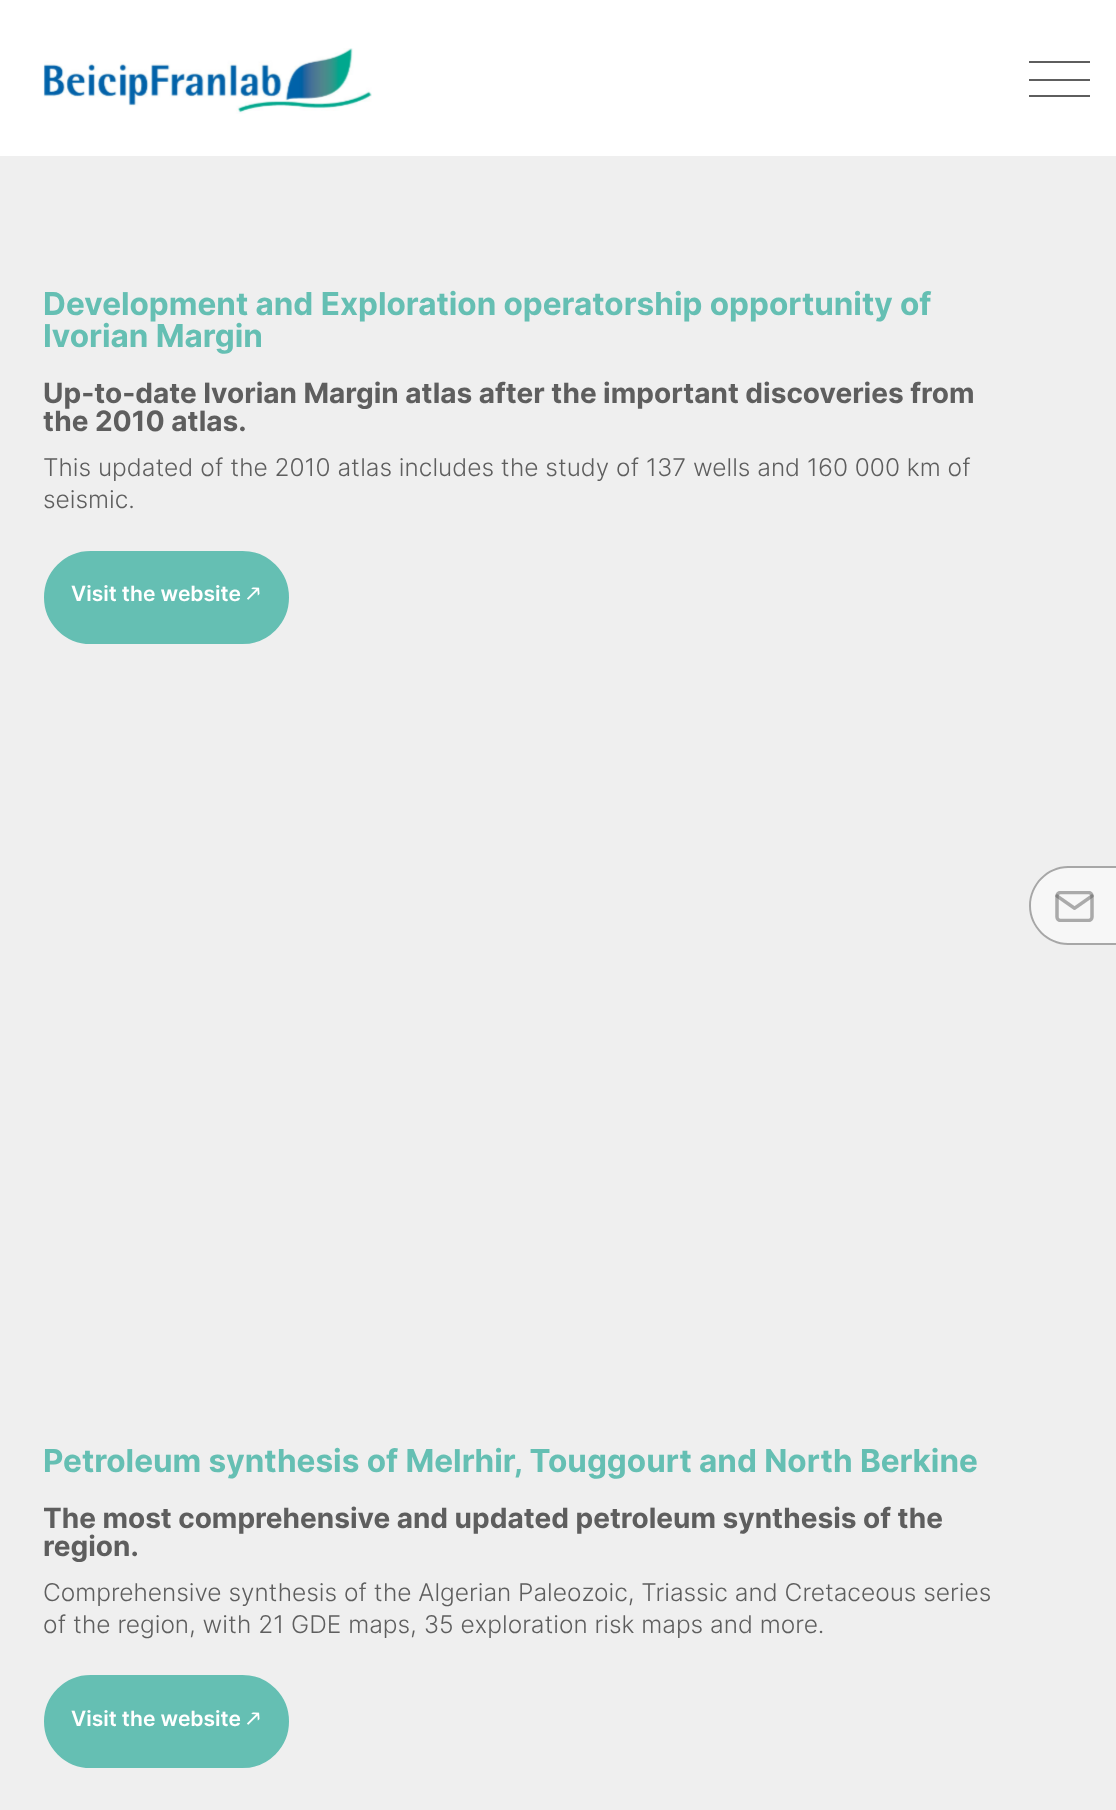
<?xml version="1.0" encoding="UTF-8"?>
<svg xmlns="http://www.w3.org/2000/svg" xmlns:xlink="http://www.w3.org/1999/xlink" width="1116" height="1810">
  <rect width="100%" height="100%" fill="#efefef" />
  <rect width="1116" height="156" fill="#ffffff" />
  <image x="43" y="48" width="329" height="66" xlink:href="image1.png" />
  <rect x="1029" y="61" width="61" height="2" fill="#5e5e5e" />
  <rect x="1029" y="79" width="61" height="2" fill="#5e5e5e" />
  <rect x="1029" y="95" width="61" height="2" fill="#5e5e5e" />
  <rect x="45" y="552" width="243" height="91" rx="45.5" fill="#65bfb3" stroke="#65bfb3" stroke-width="2" />
  <rect x="45" y="1676" width="243" height="91" rx="45.5" fill="#65bfb3" stroke="#65bfb3" stroke-width="2" />
  <path d="M 1068.5 866 h 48.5 v 79 h -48.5 c -22 0 -39.5 -17.5 -39.5 -39.5 c 0 -22 17.5 -39.5 39.5 -39.5 z" fill="#f7f7f7" />
  <path d="M 1068 866 h 48 v 79 h -48 c -21 0 -39 -18 -39 -39 c 0 -22 18 -40 39 -40 z m 0 2 h 48 v 75 h -48 c -20 0 -37 -17 -37 -37 c 0 -21 17 -38 37 -38 z" fill="#a7a7a7" fill-rule="evenodd" />
  <image x="1055" y="891" width="39" height="31" xlink:href="image2.png" />
  <text x="43" y="315" style="font-family: Inter; font-size: 31.5px; font-weight: bold; fill: #65bfb3">Development and Exploration operatorship opportunity of</text>
  <text x="43" y="347" style="font-family: Inter; font-size: 31.5px; font-weight: bold; fill: #65bfb3">Ivorian Margin</text>
  <text x="43" y="403" style="font-family: Inter; font-size: 28px; font-weight: bold; fill: #5e5e5e">Up-to-date Ivorian Margin atlas after the important discoveries from</text>
  <text x="43" y="431" style="font-family: Inter; font-size: 28px; font-weight: bold; fill: #5e5e5e">the 2010 atlas.</text>
  <text x="43" y="476" style="font-family: Inter; font-size: 24.5px; font-weight: 300; fill: #5e5e5e">This updated of the 2010 atlas includes the study of 137 wells and 160 000 km of</text>
  <text x="43" y="508" style="font-family: Inter; font-size: 24.5px; font-weight: 300; fill: #5e5e5e">seismic.</text>
  <text x="71" y="601" style="font-family: Inter; font-size: 21px; font-weight: 600; fill: #ffffff">Visit the website</text>
  <text x="246" y="601" style="font-family: 'Noto Sans Symbols 2'; font-size: 21px; font-weight: bold; fill: #ffffff">🡕</text>
  <text x="43" y="1472" style="font-family: Inter; font-size: 31.5px; font-weight: bold; fill: #65bfb3">Petroleum synthesis of Melrhir, Touggourt and North Berkine</text>
  <text x="43" y="1528" style="font-family: Inter; font-size: 28px; font-weight: bold; fill: #5e5e5e">The most comprehensive and updated petroleum synthesis of the</text>
  <text x="43" y="1556" style="font-family: Inter; font-size: 28px; font-weight: bold; fill: #5e5e5e">region.</text>
  <text x="43" y="1601" style="font-family: Inter; font-size: 24.5px; font-weight: 300; fill: #5e5e5e">Comprehensive synthesis of the Algerian Paleozoic, Triassic and Cretaceous series</text>
  <text x="43" y="1633" style="font-family: Inter; font-size: 24.5px; font-weight: 300; fill: #5e5e5e">of the region, with 21 GDE maps, 35 exploration risk maps and more.</text>
  <text x="71" y="1726" style="font-family: Inter; font-size: 21px; font-weight: 600; fill: #ffffff">Visit the website</text>
  <text x="246" y="1726" style="font-family: 'Noto Sans Symbols 2'; font-size: 21px; font-weight: bold; fill: #ffffff">🡕</text>
</svg>
